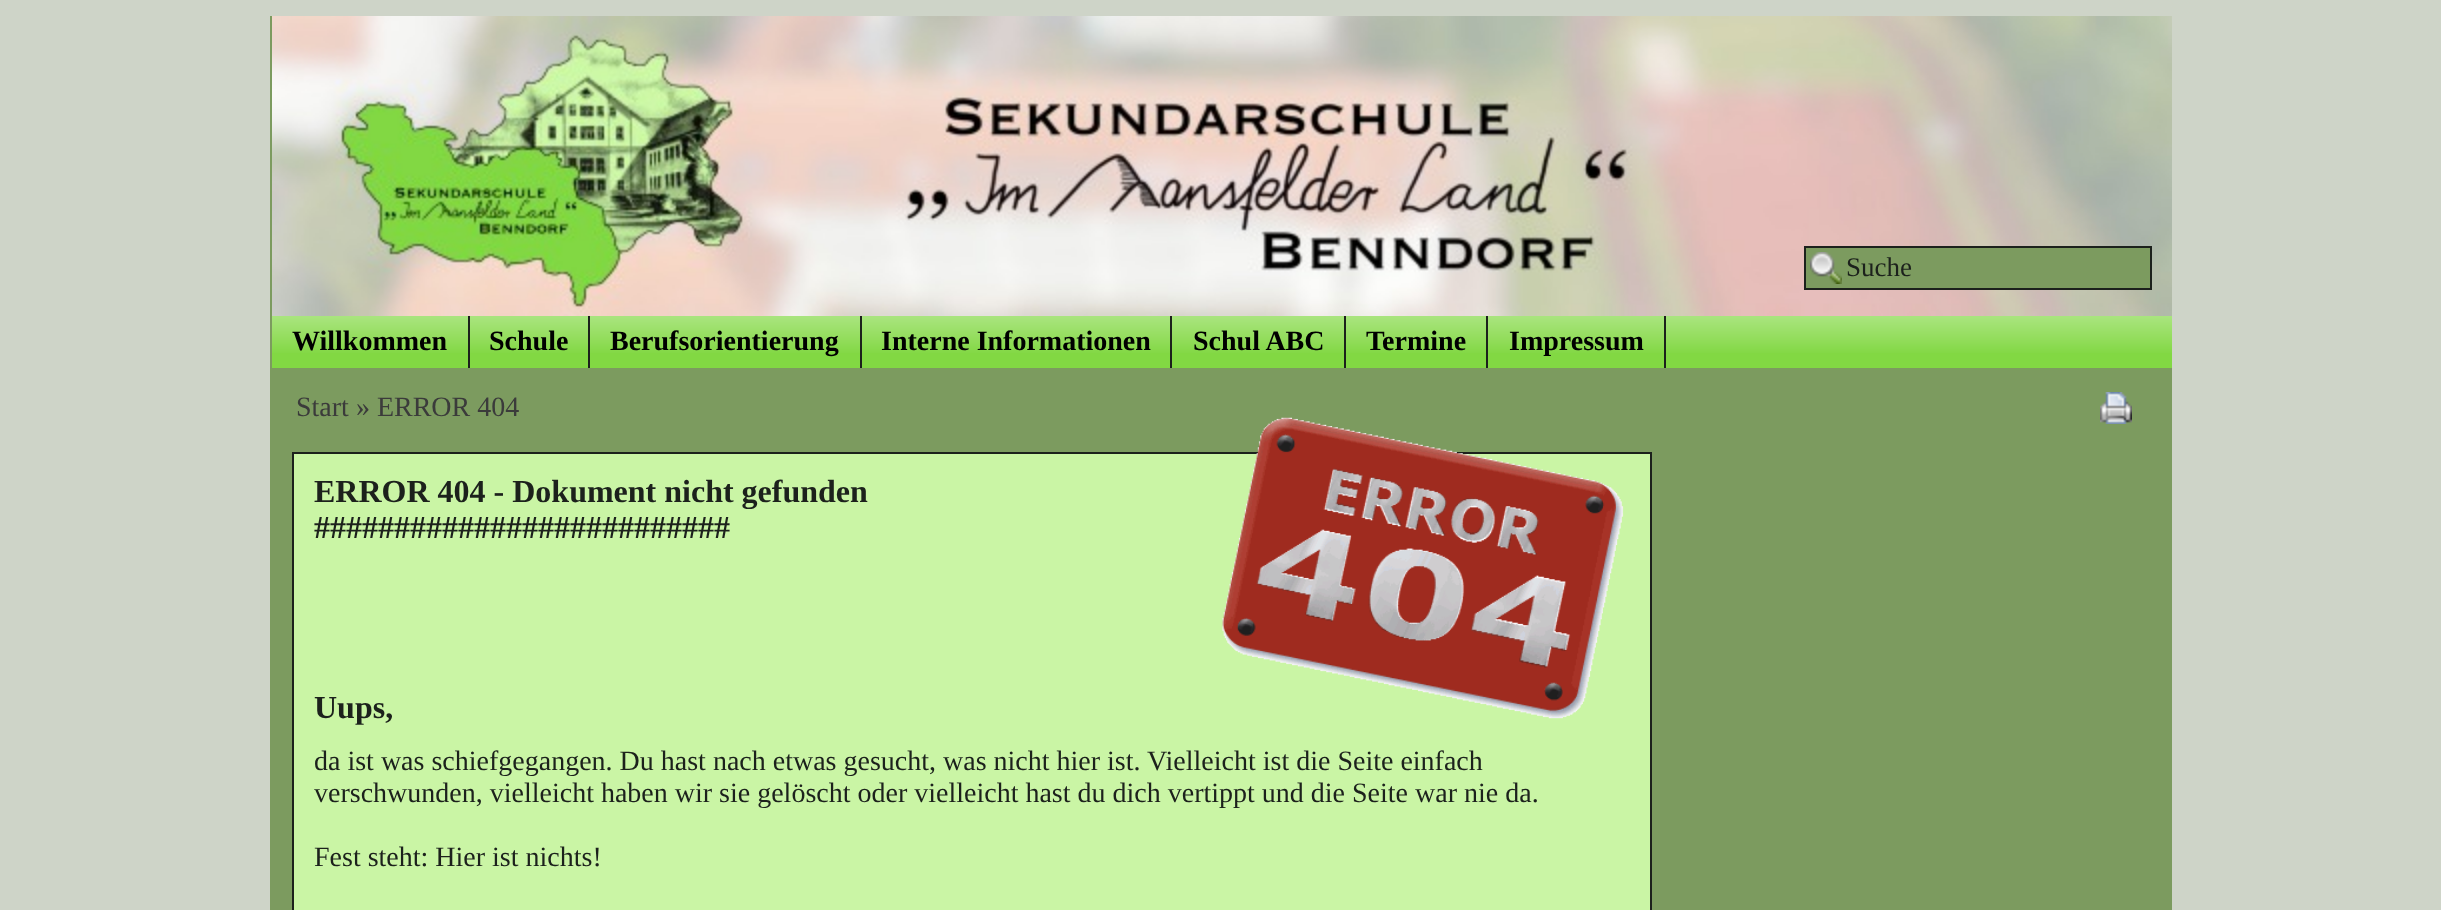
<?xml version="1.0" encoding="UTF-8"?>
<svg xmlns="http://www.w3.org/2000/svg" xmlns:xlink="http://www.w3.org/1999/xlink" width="2441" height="910">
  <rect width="100%" height="100%" fill="#ced4c8" />
  <rect x="270" y="16" width="1902" height="894" fill="#7c9b5f" />
  <image x="272" y="16" width="1900" height="300" xlink:href="image1.png" />
  <rect x="1806" y="248" width="344" height="40" fill="#7c9b5f" />
  <image x="1810" y="252" width="32" height="32" xlink:href="image2.png" />
  <rect x="1805" y="247" width="346" height="42" fill="none" stroke="#1c211c" stroke-width="2" />
  <rect x="272" y="316" width="1900" height="52" fill="#82d843" />
  <image x="272" y="316" width="1900" height="37" xlink:href="image3.png" />
  <rect x="468" y="316" width="2" height="52" fill="#1c211c" />
  <rect x="588" y="316" width="2" height="52" fill="#1c211c" />
  <rect x="860" y="316" width="2" height="52" fill="#1c211c" />
  <rect x="1170" y="316" width="2" height="52" fill="#1c211c" />
  <rect x="1344" y="316" width="2" height="52" fill="#1c211c" />
  <rect x="1486" y="316" width="2" height="52" fill="#1c211c" />
  <rect x="1664" y="316" width="2" height="52" fill="#1c211c" />
  <image x="2100" y="392" width="32" height="32" xlink:href="image4.png" />
  <rect x="293" y="453" width="1358" height="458" fill="none" stroke="#1c211c" stroke-width="2" />
  <rect x="294" y="454" width="1356" height="456" fill="#caf5a5" />
  <image x="1222" y="417" width="402" height="302" xlink:href="image5.png" />
  <text x="1846" y="276" style="font-family: Liberation Serif; font-size: 27px; fill: #1c211c">Suche</text>
  <text x="292" y="350" style="font-family: Liberation Serif; font-size: 28px; font-weight: bold; fill: #000000">Willkommen</text>
  <text x="489" y="350" style="font-family: Liberation Serif; font-size: 28px; font-weight: bold; fill: #000000">Schule</text>
  <text x="610" y="350" style="font-family: Liberation Serif; font-size: 28px; font-weight: bold; fill: #000000">Berufsorientierung</text>
  <text x="881" y="350" style="font-family: Liberation Serif; font-size: 28px; font-weight: bold; fill: #000000">Interne Informationen</text>
  <text x="1193" y="350" style="font-family: Liberation Serif; font-size: 28px; font-weight: bold; fill: #000000">Schul ABC</text>
  <text x="1366" y="350" style="font-family: Liberation Serif; font-size: 28px; font-weight: bold; fill: #000000">Termine</text>
  <text x="1509" y="350" style="font-family: Liberation Serif; font-size: 28px; font-weight: bold; fill: #000000">Impressum</text>
  <text x="296" y="416" style="font-family: Liberation Serif; font-size: 28px; fill: #3b3b3b">Start » ERROR 404</text>
  <text x="314" y="502" style="font-family: Liberation Serif; font-size: 32px; font-weight: bold; fill: #1c211c">ERROR 404 - Dokument nicht gefunden</text>
  <text x="314" y="538" style="font-family: Liberation Serif; font-size: 32px; font-weight: bold; fill: #1c211c">##########################</text>
  <text x="314" y="718" style="font-family: Liberation Serif; font-size: 32px; font-weight: bold; fill: #1c211c">Uups,</text>
  <text x="314" y="770" style="font-family: Liberation Serif; font-size: 28px; fill: #1c211c">da ist was schiefgegangen. Du hast nach etwas gesucht, was nicht hier ist. Vielleicht ist die Seite einfach</text>
  <text x="314" y="802" style="font-family: Liberation Serif; font-size: 28px; fill: #1c211c">verschwunden, vielleicht haben wir sie gelöscht oder vielleicht hast du dich vertippt und die Seite war nie da.</text>
  <text x="314" y="866" style="font-family: Liberation Serif; font-size: 28px; fill: #1c211c">Fest steht: Hier ist nichts!</text>
</svg>
